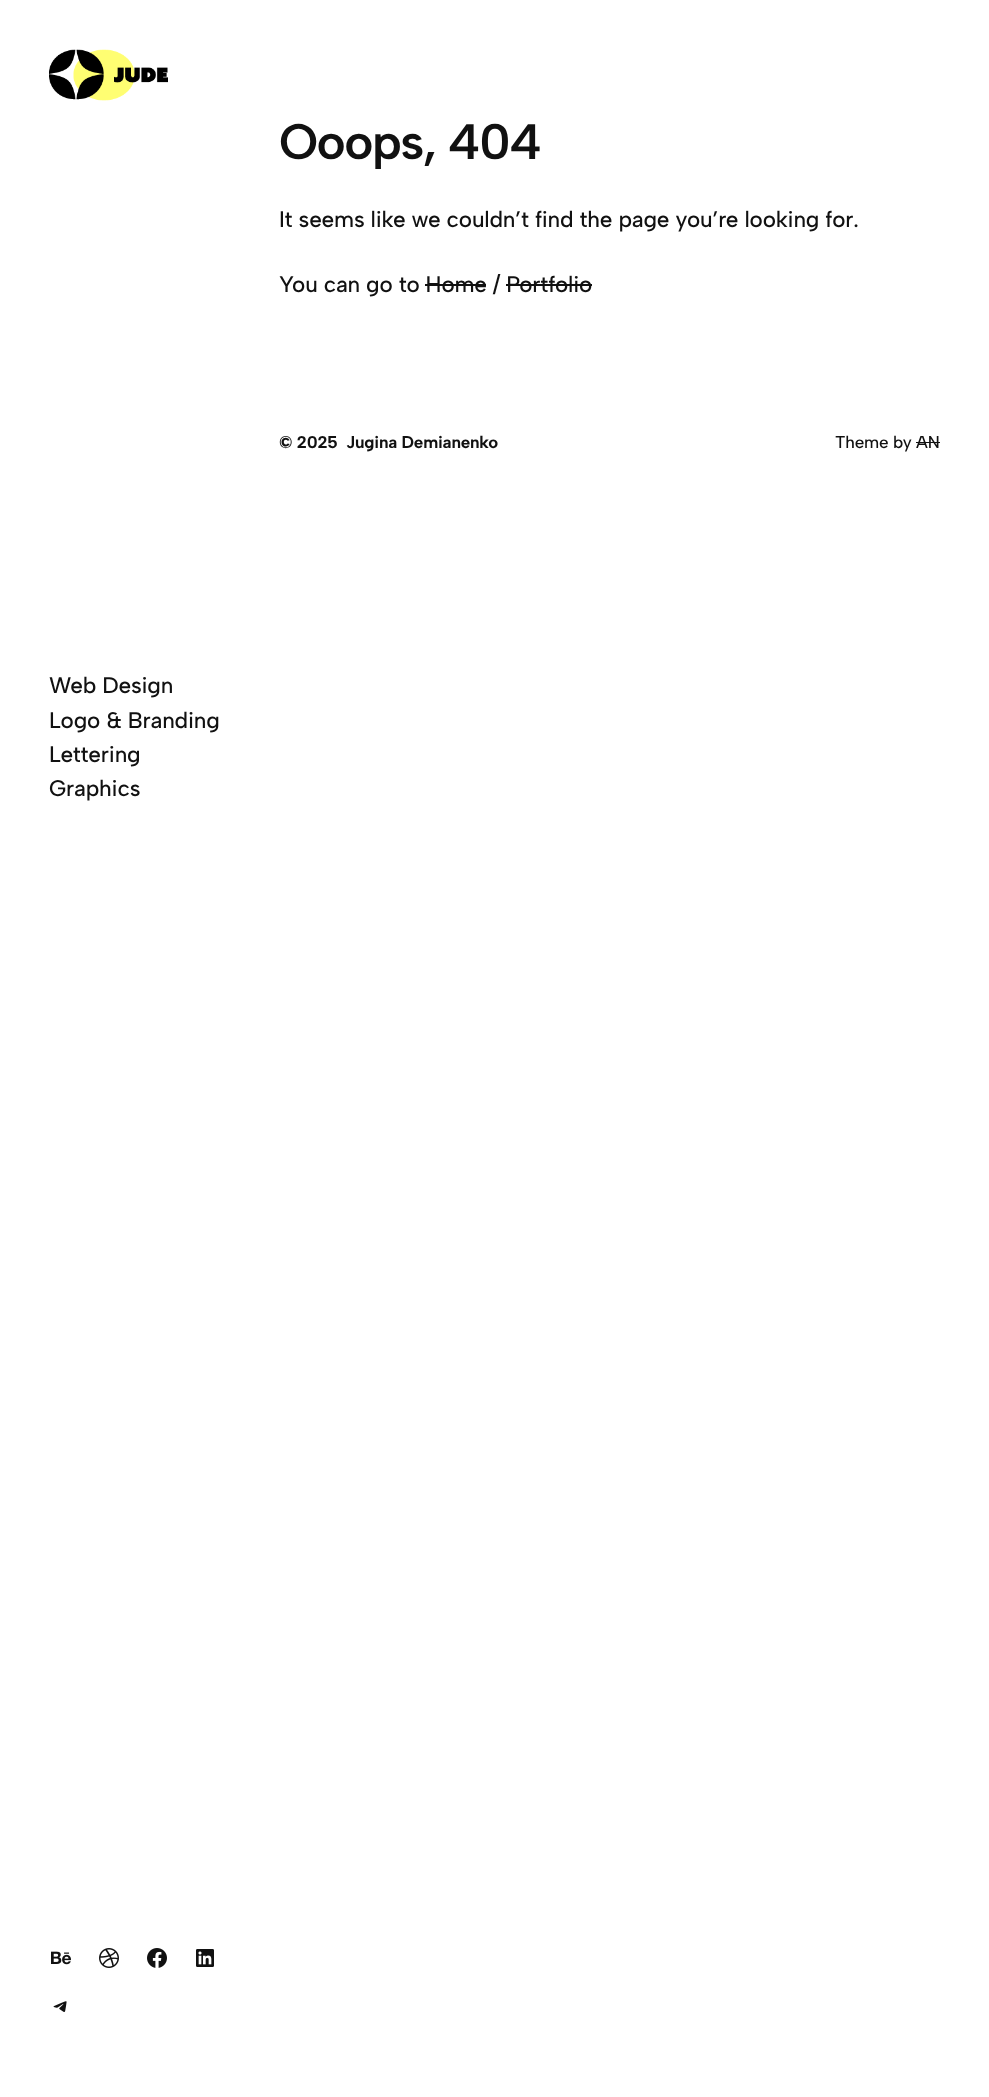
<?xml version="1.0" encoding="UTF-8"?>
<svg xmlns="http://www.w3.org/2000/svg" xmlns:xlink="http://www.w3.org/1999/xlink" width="989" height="2097">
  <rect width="100%" height="100%" fill="#ffffff" />
  <rect x="425" y="284" width="61" height="2" fill="#111111" />
  <rect x="506" y="284" width="86" height="2" fill="#111111" />
  <rect x="916" y="442" width="24" height="1" fill="#111111" />
  <image x="49" y="49" width="119" height="52" xlink:href="image1.png" />
  <image x="51" y="1951" width="20" height="14" xlink:href="image2.png" />
  <image x="99" y="1948" width="20" height="20" xlink:href="image3.png" />
  <image x="147" y="1948" width="20" height="20" xlink:href="image4.png" />
  <image x="196" y="1949" width="18" height="18" xlink:href="image5.png" />
  <image x="53" y="2001" width="14" height="11" xlink:href="image6.png" />
  <text x="279" y="159" style="font-family: Albert Sans; font-size: 49.75px; font-weight: 600; letter-spacing: -1.5px; fill: #111111">Ooops, 404</text>
  <text x="279" y="227" style="font-family: Albert Sans; font-size: 22.5px; font-weight: 500; letter-spacing: -0.2px; fill: #111111">It seems like we couldn’t find the page you’re looking for.</text>
  <text x="279" y="292" style="font-family: Albert Sans; font-size: 22.5px; font-weight: 500; letter-spacing: -0.2px; fill: #111111">You can go to Home / Portfolio</text>
  <text x="279" y="448" style="font-family: Albert Sans; font-size: 17px; font-weight: bold; letter-spacing: -0.2px; fill: #111111">© 2025</text>
  <text x="346" y="448" style="font-family: Albert Sans; font-size: 17px; font-weight: bold; letter-spacing: -0.2px; fill: #111111">Jugina Demianenko</text>
  <text x="835" y="448" style="font-family: Albert Sans; font-size: 17px; font-weight: 500; letter-spacing: -0.2px; fill: #111111">Theme by AN</text>
  <text x="49" y="693" style="font-family: Albert Sans; font-size: 22.5px; font-weight: 500; letter-spacing: -0.2px; fill: #111111">Web Design</text>
  <text x="49" y="728" style="font-family: Albert Sans; font-size: 22.5px; font-weight: 500; letter-spacing: -0.2px; fill: #111111">Logo &amp; Branding</text>
  <text x="49" y="762" style="font-family: Albert Sans; font-size: 22.5px; font-weight: 500; letter-spacing: -0.2px; fill: #111111">Lettering</text>
  <text x="49" y="796" style="font-family: Albert Sans; font-size: 22.5px; font-weight: 500; letter-spacing: -0.2px; fill: #111111">Graphics</text>
</svg>
